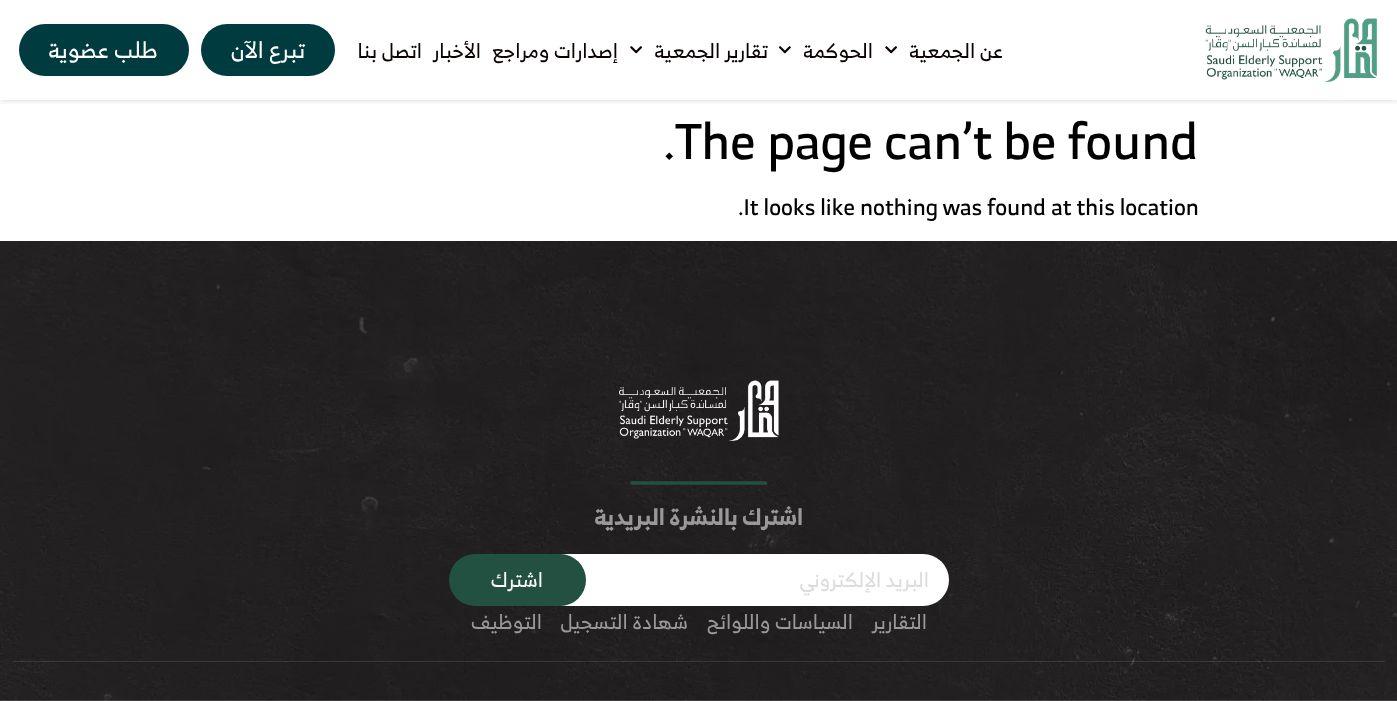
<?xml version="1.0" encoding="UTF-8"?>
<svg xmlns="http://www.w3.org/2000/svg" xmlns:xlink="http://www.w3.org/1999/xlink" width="1397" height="701">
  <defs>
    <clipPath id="clip1"><rect x="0" y="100" width="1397" height="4" /></clipPath>
  </defs>
  <rect width="100%" height="100%" fill="#ffffff" />
  <g clip-path="url(#clip1)">
    <rect width="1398" height="100" fill="#000000" fill-opacity="0.18" filter="blur(3px)" />
  </g>
  <image x="1205" y="18" width="172" height="64" xlink:href="image1.png" />
  <image x="885" y="46" width="12" height="8" xlink:href="image2.png" />
  <image x="779" y="46" width="12" height="8" xlink:href="image3.png" />
  <image x="630" y="46" width="12" height="8" xlink:href="image2.png" />
  <rect x="201" y="24" width="134" height="52" rx="26" fill="#003b40" />
  <rect x="19" y="24" width="170" height="52" rx="26" fill="#003b40" />
  <image x="0" y="241" width="1397" height="460" xlink:href="image4.png" />
  <image x="619" y="380" width="160" height="61" xlink:href="image5.png" />
  <path d="M 765.5 483 h -133.5" fill="none" stroke="#225141" stroke-width="3.7" stroke-linecap="round" />
  <rect x="539" y="554" width="410" height="52" rx="26" fill="#ffffff" />
  <rect x="449" y="554" width="137" height="52" rx="26" fill="#225141" />
  <rect x="13" y="661" width="1372" height="1" fill="#999999" fill-opacity="0.2" />
  <text x="1003" y="58" style="font-family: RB; font-size: 20px; direction: rtl; fill: #0a0101">عن الجمعية</text>
  <text x="873" y="58" style="font-family: RB; font-size: 20px; direction: rtl; fill: #0a0101">الحوكمة</text>
  <text x="768" y="58" style="font-family: RB; font-size: 20px; direction: rtl; fill: #0a0101">تقارير الجمعية</text>
  <text x="618" y="58" style="font-family: RB; font-size: 20px; direction: rtl; fill: #0a0101">إصدارات ومراجع</text>
  <text x="481" y="58" style="font-family: RB; font-size: 20px; direction: rtl; fill: #0a0101">الأخبار</text>
  <text x="422" y="58" style="font-family: RB; font-size: 20px; direction: rtl; fill: #0a0101">اتصل بنا</text>
  <text x="305" y="58" style="font-family: RB; font-size: 22.5px; direction: rtl; fill: #ffffff">تبرع الآن</text>
  <text x="158" y="58" style="font-family: RB; font-size: 22.5px; direction: rtl; fill: #ffffff">طلب عضوية</text>
  <text x="663" y="159" style="font-family: RB; font-size: 50px; fill: #000000">.The page can’t be found</text>
  <text x="738" y="215" style="font-family: RB; font-size: 22.5px; fill: #000000">.It looks like nothing was found at this location</text>
  <text x="803" y="525" style="font-family: RB; font-size: 22.5px; font-weight: bold; direction: rtl; fill: #999999">اشترك بالنشرة البريدية</text>
  <text x="929" y="587" style="font-family: RB; font-size: 20px; direction: rtl; fill: #dcdcdc">البريد الإلكتروني</text>
  <text x="543" y="587" style="font-family: RB; font-size: 20px; direction: rtl; fill: #ffffff">اشترك</text>
  <text x="927" y="629" style="font-family: RB; font-size: 20px; direction: rtl; fill: #999999">التقارير</text>
  <text x="853" y="629" style="font-family: RB; font-size: 20px; direction: rtl; fill: #999999">السياسات واللوائح</text>
  <text x="688" y="629" style="font-family: RB; font-size: 20px; direction: rtl; fill: #999999">شهادة التسجيل</text>
  <text x="542" y="629" style="font-family: RB; font-size: 20px; direction: rtl; fill: #999999">التوظيف</text>
</svg>
